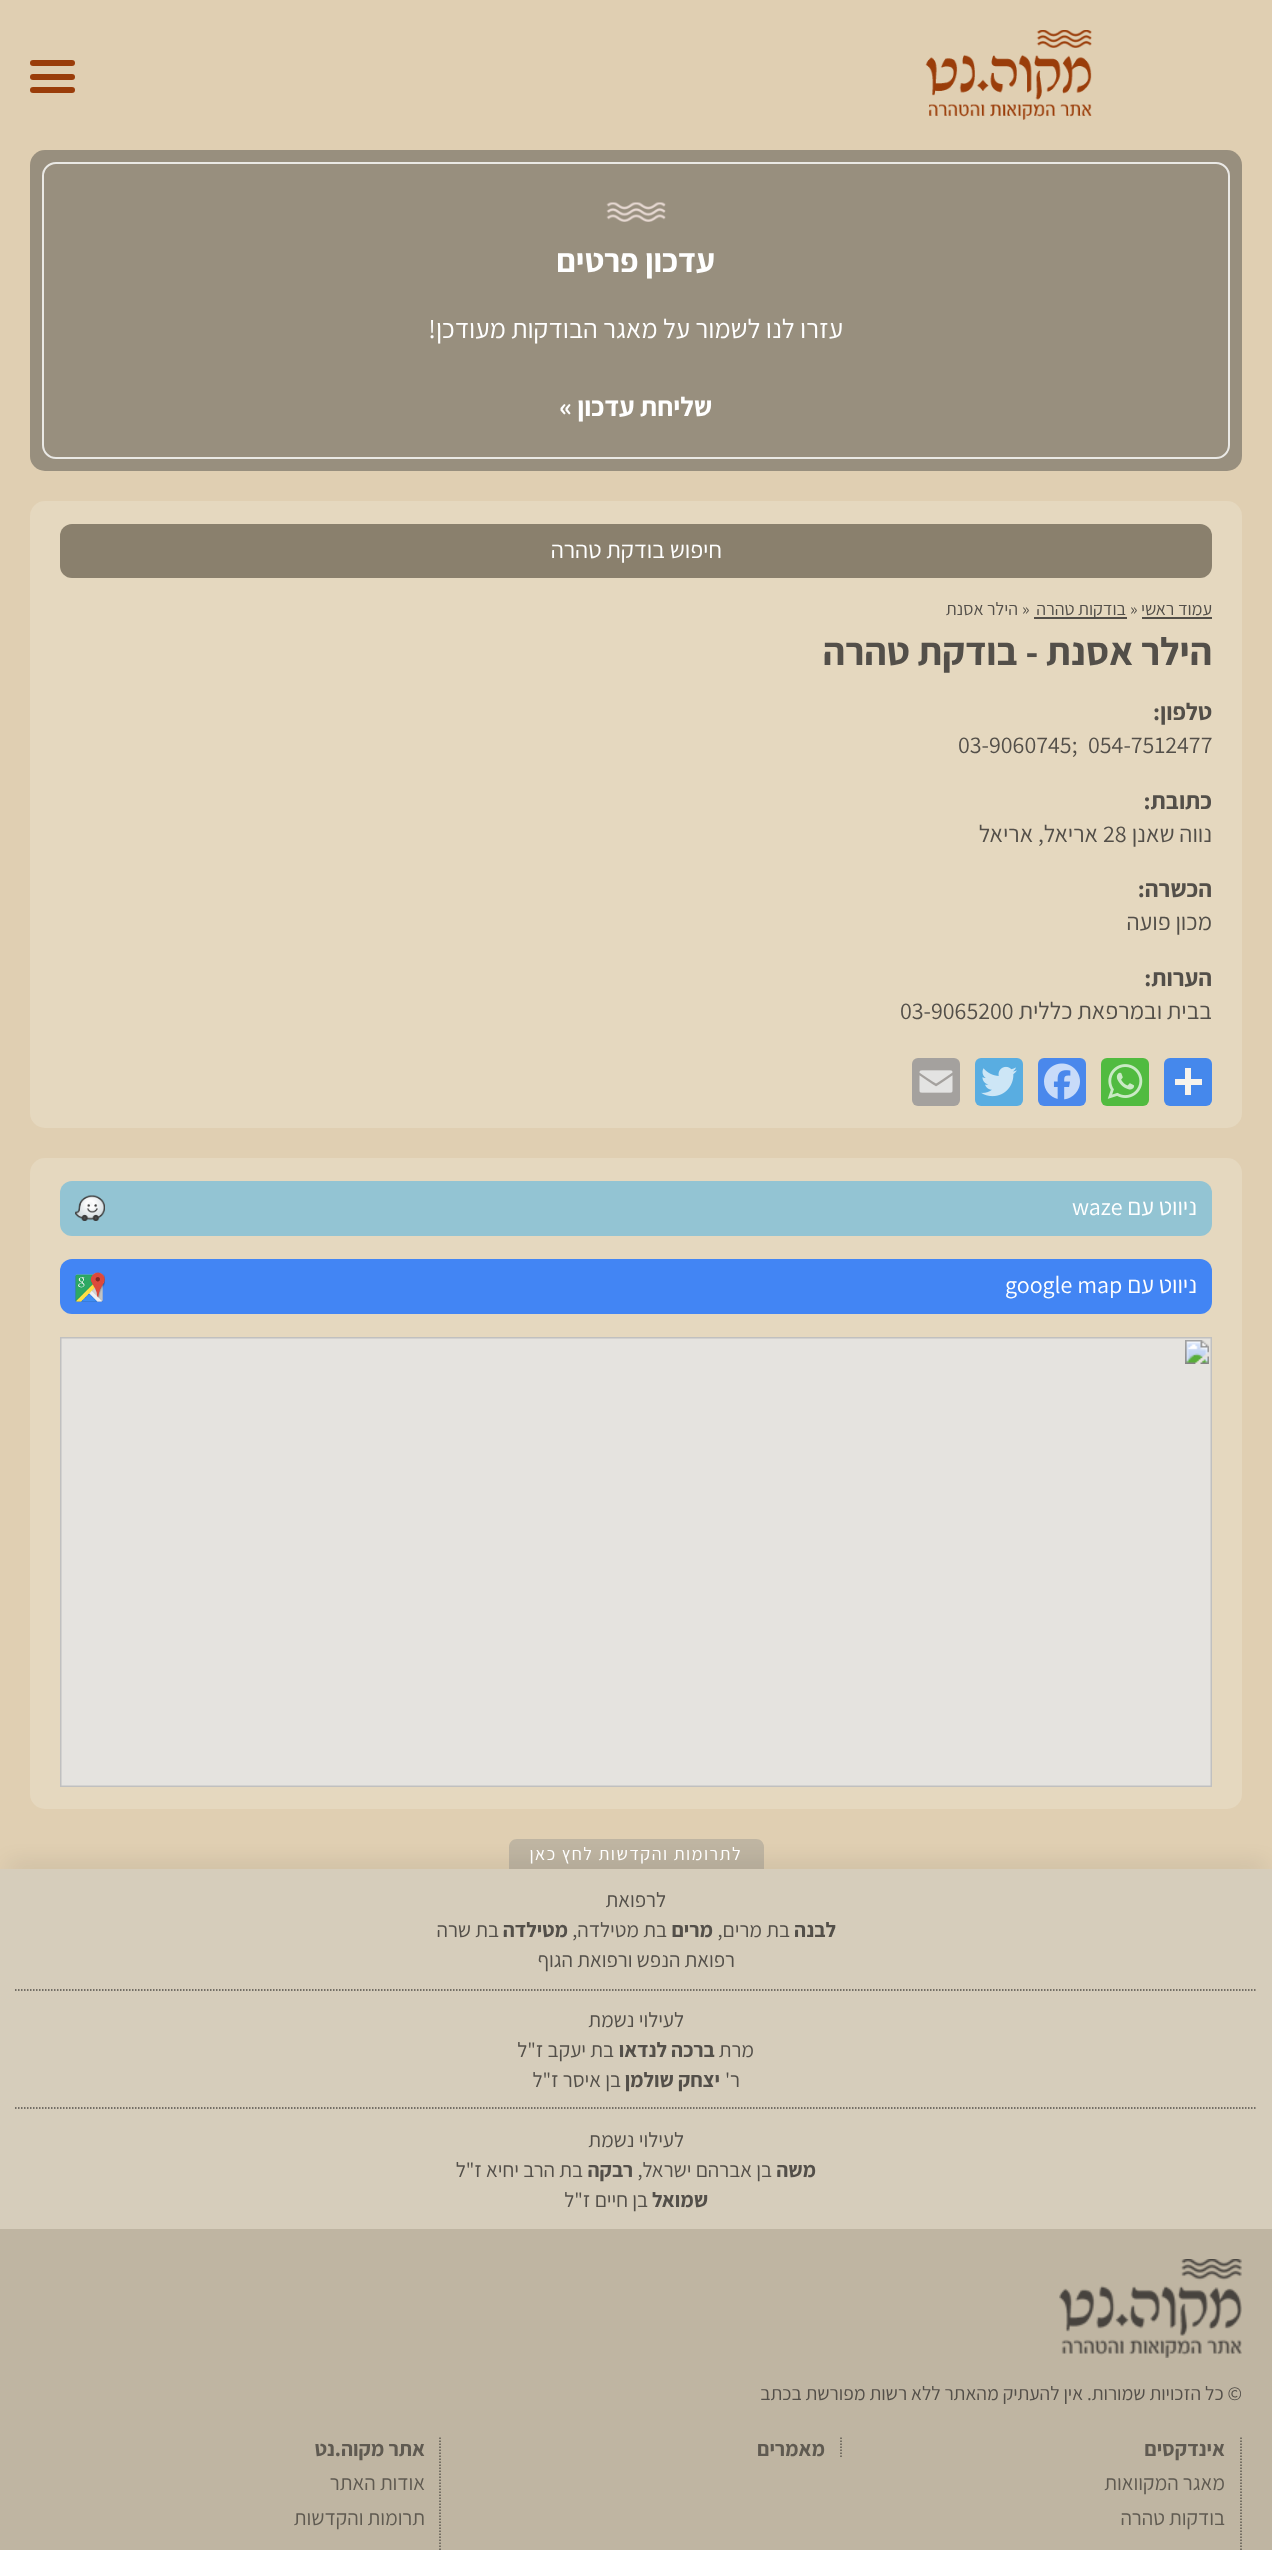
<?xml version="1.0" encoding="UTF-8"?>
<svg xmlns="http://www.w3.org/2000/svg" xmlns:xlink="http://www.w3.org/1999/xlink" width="1272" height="2550">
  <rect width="100%" height="100%" fill="#e0cfb2" />
  <image x="925" y="30" width="167" height="90" xlink:href="image1.png" />
  <rect x="30" y="60" width="45" height="6" rx="3" fill="#9a3d0a" />
  <rect x="30" y="74" width="45" height="6" rx="3" fill="#9a3d0a" />
  <rect x="30" y="87" width="45" height="6" rx="3" fill="#9a3d0a" />
  <rect x="30" y="150" width="1212" height="321" rx="15" fill="#988f7e" />
  <rect x="43" y="163" width="1186" height="295" rx="13" fill="none" stroke="#eae9e5" stroke-width="2" />
  <image x="606" y="202" width="60" height="20" xlink:href="image2.png" />
  <rect x="30" y="501" width="1212" height="627" rx="15" fill="#e5d8bf" />
  <rect x="60" y="524" width="1152" height="54" rx="12" fill="#8a806d" />
  <rect x="1142" y="617" width="70" height="2" fill="#534f49" />
  <rect x="1034" y="617" width="93" height="2" fill="#534f49" />
  <rect x="1164" y="1058" width="48" height="48" rx="6" fill="#4588ec" />
  <rect x="1185" y="1068" width="6" height="27" fill="#f7f3ec" />
  <rect x="1175" y="1079" width="27" height="6" fill="#f7f3ec" />
  <rect x="1101" y="1058" width="48" height="48" rx="6" fill="#51bb40" />
  <image x="1107" y="1064" width="36" height="35" xlink:href="image3.png" />
  <rect x="1038" y="1058" width="48" height="48" rx="6" fill="#4a88ec" />
  <image x="1044" y="1063" width="36" height="37" xlink:href="image4.png" />
  <rect x="975" y="1058" width="48" height="48" rx="6" fill="#59ade1" />
  <image x="981" y="1066" width="36" height="31" xlink:href="image5.png" />
  <rect x="912" y="1058" width="48" height="48" rx="6" fill="#a4a19e" />
  <image x="919" y="1070" width="34" height="23" xlink:href="image6.png" />
  <rect x="30" y="1158" width="1212" height="651" rx="15" fill="#e5d8bf" />
  <rect x="60" y="1181" width="1152" height="55" rx="12" fill="#93c4d3" />
  <image x="75" y="1195" width="30" height="26" xlink:href="image7.png" />
  <rect x="60" y="1259" width="1152" height="55" rx="12" fill="#4285f4" />
  <image x="75" y="1272" width="30" height="30" xlink:href="image8.png" />
  <image x="60" y="1337" width="1152" height="450" xlink:href="image9.png" />
  <rect y="1989" width="1272" height="240" fill="#d6cdbb" />
  <path d="M 517 1839 h 239 c 4.5 0 8 3.5 8 8 v 22 h -255 v -22 c 0 -4.5 3.5 -8 8 -8 z" fill="#bfb5a2" />
  <rect x="8" y="1869" width="1257" height="2" fill="#000000" fill-opacity="0.7" filter="blur(11px)" />
  <rect y="1869" width="1272" height="120" fill="#d6cdbb" />
  <path d="M 15 1990 h 1242" fill="none" stroke="#534f49" stroke-width="1.5" stroke-dasharray="1.5 1.5" />
  <path d="M 15 2108 h 1242" fill="none" stroke="#534f49" stroke-width="1.5" stroke-dasharray="1.5 1.5" />
  <rect y="2229" width="1272" height="321" fill="#bfb5a2" />
  <image x="1059" y="2259" width="183" height="99" xlink:href="image10.png" />
  <path d="M 1241 2437.5 v 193.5" fill="none" stroke="#5f5a51" stroke-width="1.5" stroke-dasharray="1.5 1.5" />
  <path d="M 841 2437.5 v 21" fill="none" stroke="#5f5a51" stroke-width="1.5" stroke-dasharray="1.5 1.5" />
  <path d="M 440 2437.5 v 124.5" fill="none" stroke="#5f5a51" stroke-width="1.5" stroke-dasharray="1.5 1.5" />
  <text x="715" y="272" style="font-family: Assistant; font-size: 33px; font-weight: bold; direction: rtl; fill: #ffffff">עדכון פרטים</text>
  <text x="843" y="338" style="font-family: Assistant; font-size: 27px; direction: rtl; fill: #ffffff">עזרו לנו לשמור על מאגר הבודקות מעודכן!</text>
  <text x="712" y="416" style="font-family: Assistant; font-size: 27px; font-weight: bold; direction: rtl; fill: #ffffff">שליחת עדכון »</text>
  <text x="722" y="558" style="font-family: Assistant; font-size: 24px; direction: rtl; fill: #ffffff">חיפוש בודקת טהרה</text>
  <text x="1212" y="615" style="font-family: Assistant; font-size: 18px; direction: rtl; fill: #534f49">עמוד ראשי</text>
  <text x="1130" y="615" style="font-family: Assistant; font-size: 18px; fill: #534f49">»</text>
  <text x="1126" y="615" style="font-family: Assistant; font-size: 18px; direction: rtl; fill: #534f49"> בודקות טהרה</text>
  <text x="1022" y="615" style="font-family: Assistant; font-size: 18px; fill: #534f49">»</text>
  <text x="1018" y="615" style="font-family: Assistant; font-size: 18px; direction: rtl; fill: #534f49">הילר אסנת</text>
  <text x="1212" y="665" style="font-family: Assistant; font-size: 39px; font-weight: bold; direction: rtl; fill: #534f49">הילר אסנת - בודקת טהרה</text>
  <text x="1212" y="720" style="font-family: Assistant; font-size: 24px; font-weight: bold; direction: rtl; fill: #534f49">טלפון:</text>
  <text x="1088" y="753" style="font-family: Assistant; font-size: 24px; fill: #534f49">054-7512477</text>
  <text x="958" y="753" style="font-family: Assistant; font-size: 24px; fill: #534f49">03-9060745;</text>
  <text x="1212" y="809" style="font-family: Assistant; font-size: 24px; font-weight: bold; direction: rtl; fill: #534f49">כתובת:</text>
  <text x="1212" y="842" style="font-family: Assistant; font-size: 24px; direction: rtl; fill: #534f49">נווה שאנן</text>
  <text x="1103" y="842" style="font-family: Assistant; font-size: 24px; fill: #534f49">28</text>
  <text x="1098" y="842" style="font-family: Assistant; font-size: 24px; direction: rtl; fill: #534f49">אריאל, אריאל</text>
  <text x="1212" y="897" style="font-family: Assistant; font-size: 24px; font-weight: bold; direction: rtl; fill: #534f49">הכשרה:</text>
  <text x="1212" y="930" style="font-family: Assistant; font-size: 24px; direction: rtl; fill: #534f49">מכון פועה</text>
  <text x="1212" y="986" style="font-family: Assistant; font-size: 24px; font-weight: bold; direction: rtl; fill: #534f49">הערות:</text>
  <text x="1212" y="1019" style="font-family: Assistant; font-size: 24px; direction: rtl; fill: #534f49">בבית ובמרפאת כללית</text>
  <text x="900" y="1019" style="font-family: Assistant; font-size: 24px; fill: #534f49">03-9065200</text>
  <text x="1197" y="1215" style="font-family: Assistant; font-size: 24px; direction: rtl; fill: #ffffff">ניווט עם</text>
  <text x="1072" y="1215" style="font-family: Assistant; font-size: 24px; fill: #ffffff">waze</text>
  <text x="1197" y="1293" style="font-family: Assistant; font-size: 24px; direction: rtl; fill: #ffffff">ניווט עם</text>
  <text x="1005" y="1293" style="font-family: Assistant; font-size: 24px; fill: #ffffff">google map</text>
  <text x="742" y="1860" style="font-family: Assistant; font-size: 18px; letter-spacing: 1.5px; direction: rtl; fill: #ffffff">לתרומות והקדשות לחץ כאן</text>
  <text x="666" y="1907" style="font-family: Assistant; font-size: 21px; direction: rtl; fill: #534f49">לרפואת</text>
  <text x="836" y="1937" style="font-family: Assistant; font-size: 21px; font-weight: bold; direction: rtl; fill: #534f49">לבנה</text>
  <text x="790" y="1937" style="font-family: Assistant; font-size: 21px; direction: rtl; fill: #534f49">בת מרים,</text>
  <text x="713" y="1937" style="font-family: Assistant; font-size: 21px; font-weight: bold; direction: rtl; fill: #534f49">מרים</text>
  <text x="667" y="1937" style="font-family: Assistant; font-size: 21px; direction: rtl; fill: #534f49">בת מטילדה,</text>
  <text x="568" y="1937" style="font-family: Assistant; font-size: 21px; font-weight: bold; direction: rtl; fill: #534f49">מטילדה</text>
  <text x="499" y="1937" style="font-family: Assistant; font-size: 21px; direction: rtl; fill: #534f49">בת שרה</text>
  <text x="735" y="1967" style="font-family: Assistant; font-size: 21px; direction: rtl; fill: #534f49">רפואת הנפש ורפואת הגוף</text>
  <text x="684" y="2027" style="font-family: Assistant; font-size: 21px; direction: rtl; fill: #534f49">לעילוי נשמת</text>
  <text x="754" y="2057" style="font-family: Assistant; font-size: 21px; direction: rtl; fill: #534f49">מרת</text>
  <text x="715" y="2057" style="font-family: Assistant; font-size: 21px; font-weight: bold; direction: rtl; fill: #534f49">ברכה לנדאו</text>
  <text x="614" y="2057" style="font-family: Assistant; font-size: 21px; direction: rtl; fill: #534f49">בת יעקב ז"ל</text>
  <text x="740" y="2087" style="font-family: Assistant; font-size: 21px; direction: rtl; fill: #534f49">ר'</text>
  <text x="720" y="2087" style="font-family: Assistant; font-size: 21px; font-weight: bold; direction: rtl; fill: #534f49">יצחק שולמן</text>
  <text x="621" y="2087" style="font-family: Assistant; font-size: 21px; direction: rtl; fill: #534f49">בן איסר ז"ל</text>
  <text x="684" y="2147" style="font-family: Assistant; font-size: 21px; direction: rtl; fill: #534f49">לעילוי נשמת</text>
  <text x="816" y="2177" style="font-family: Assistant; font-size: 21px; font-weight: bold; direction: rtl; fill: #534f49">משה</text>
  <text x="772" y="2177" style="font-family: Assistant; font-size: 21px; direction: rtl; fill: #534f49">בן אברהם ישראל,</text>
  <text x="633" y="2177" style="font-family: Assistant; font-size: 21px; font-weight: bold; direction: rtl; fill: #534f49">רבקה</text>
  <text x="583" y="2177" style="font-family: Assistant; font-size: 21px; direction: rtl; fill: #534f49">בת הרב יחיא ז"ל</text>
  <text x="708" y="2207" style="font-family: Assistant; font-size: 21px; font-weight: bold; direction: rtl; fill: #534f49">שמואל</text>
  <text x="648" y="2207" style="font-family: Assistant; font-size: 21px; direction: rtl; fill: #534f49">בן חיים ז"ל</text>
  <text x="1242" y="2400" style="font-family: Assistant; font-size: 19.5px; direction: rtl; fill: #534f49">© כל הזכויות שמורות. אין להעתיק מהאתר ללא רשות מפורשת בכתב</text>
  <text x="1225" y="2456" style="font-family: Assistant; font-size: 21px; font-weight: bold; direction: rtl; fill: #5f5a51">אינדקסים</text>
  <text x="1225" y="2490" style="font-family: Assistant; font-size: 21px; direction: rtl; fill: #5f5a51">מאגר המקוואות</text>
  <text x="1225" y="2525" style="font-family: Assistant; font-size: 21px; direction: rtl; fill: #5f5a51">בודקות טהרה</text>
  <text x="825" y="2456" style="font-family: Assistant; font-size: 21px; font-weight: bold; direction: rtl; fill: #5f5a51">מאמרים</text>
  <text x="425" y="2456" style="font-family: Assistant; font-size: 21px; font-weight: bold; direction: rtl; fill: #5f5a51">אתר מקוה.נט</text>
  <text x="425" y="2490" style="font-family: Assistant; font-size: 21px; direction: rtl; fill: #5f5a51">אודות האתר</text>
  <text x="425" y="2525" style="font-family: Assistant; font-size: 21px; direction: rtl; fill: #5f5a51">תרומות והקדשות</text>
</svg>
